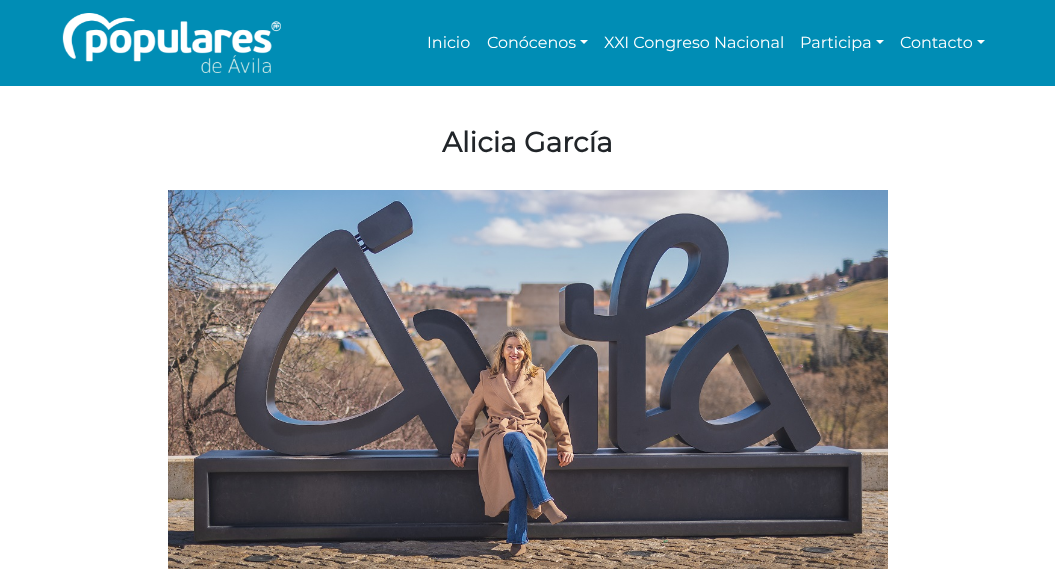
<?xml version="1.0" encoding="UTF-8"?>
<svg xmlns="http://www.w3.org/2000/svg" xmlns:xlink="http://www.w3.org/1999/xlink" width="1055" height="580">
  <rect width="100%" height="100%" fill="#ffffff" />
  <rect width="1055" height="86" fill="#008db5" />
  <image x="62" y="13" width="219" height="60" xlink:href="image1.png" />
  <path d="M 580 40 h 8 l -4 4 z" fill="#ffffff" />
  <path d="M 876 40 h 8 l -4 4 z" fill="#ffffff" />
  <path d="M 977 40 h 8 l -4 4 z" fill="#ffffff" />
  <image x="168" y="190" width="720" height="379" xlink:href="image2.png" />
  <text x="427" y="48" style="font-family: Montserrat; font-size: 16px; font-weight: 100; fill: #ffffff">Inicio</text>
  <text x="487" y="48" style="font-family: Montserrat; font-size: 16px; font-weight: 100; fill: #ffffff">Conócenos</text>
  <text x="604" y="48" style="font-family: Montserrat; font-size: 16px; font-weight: 100; fill: #ffffff">XXI Congreso Nacional</text>
  <text x="800" y="48" style="font-family: Montserrat; font-size: 16px; font-weight: 100; fill: #ffffff">Participa</text>
  <text x="900" y="48" style="font-family: Montserrat; font-size: 16px; font-weight: 100; fill: #ffffff">Contacto</text>
  <text x="442" y="152" style="font-family: Montserrat; font-size: 28px; font-weight: bold; fill: #212529">Alicia García</text>
</svg>
